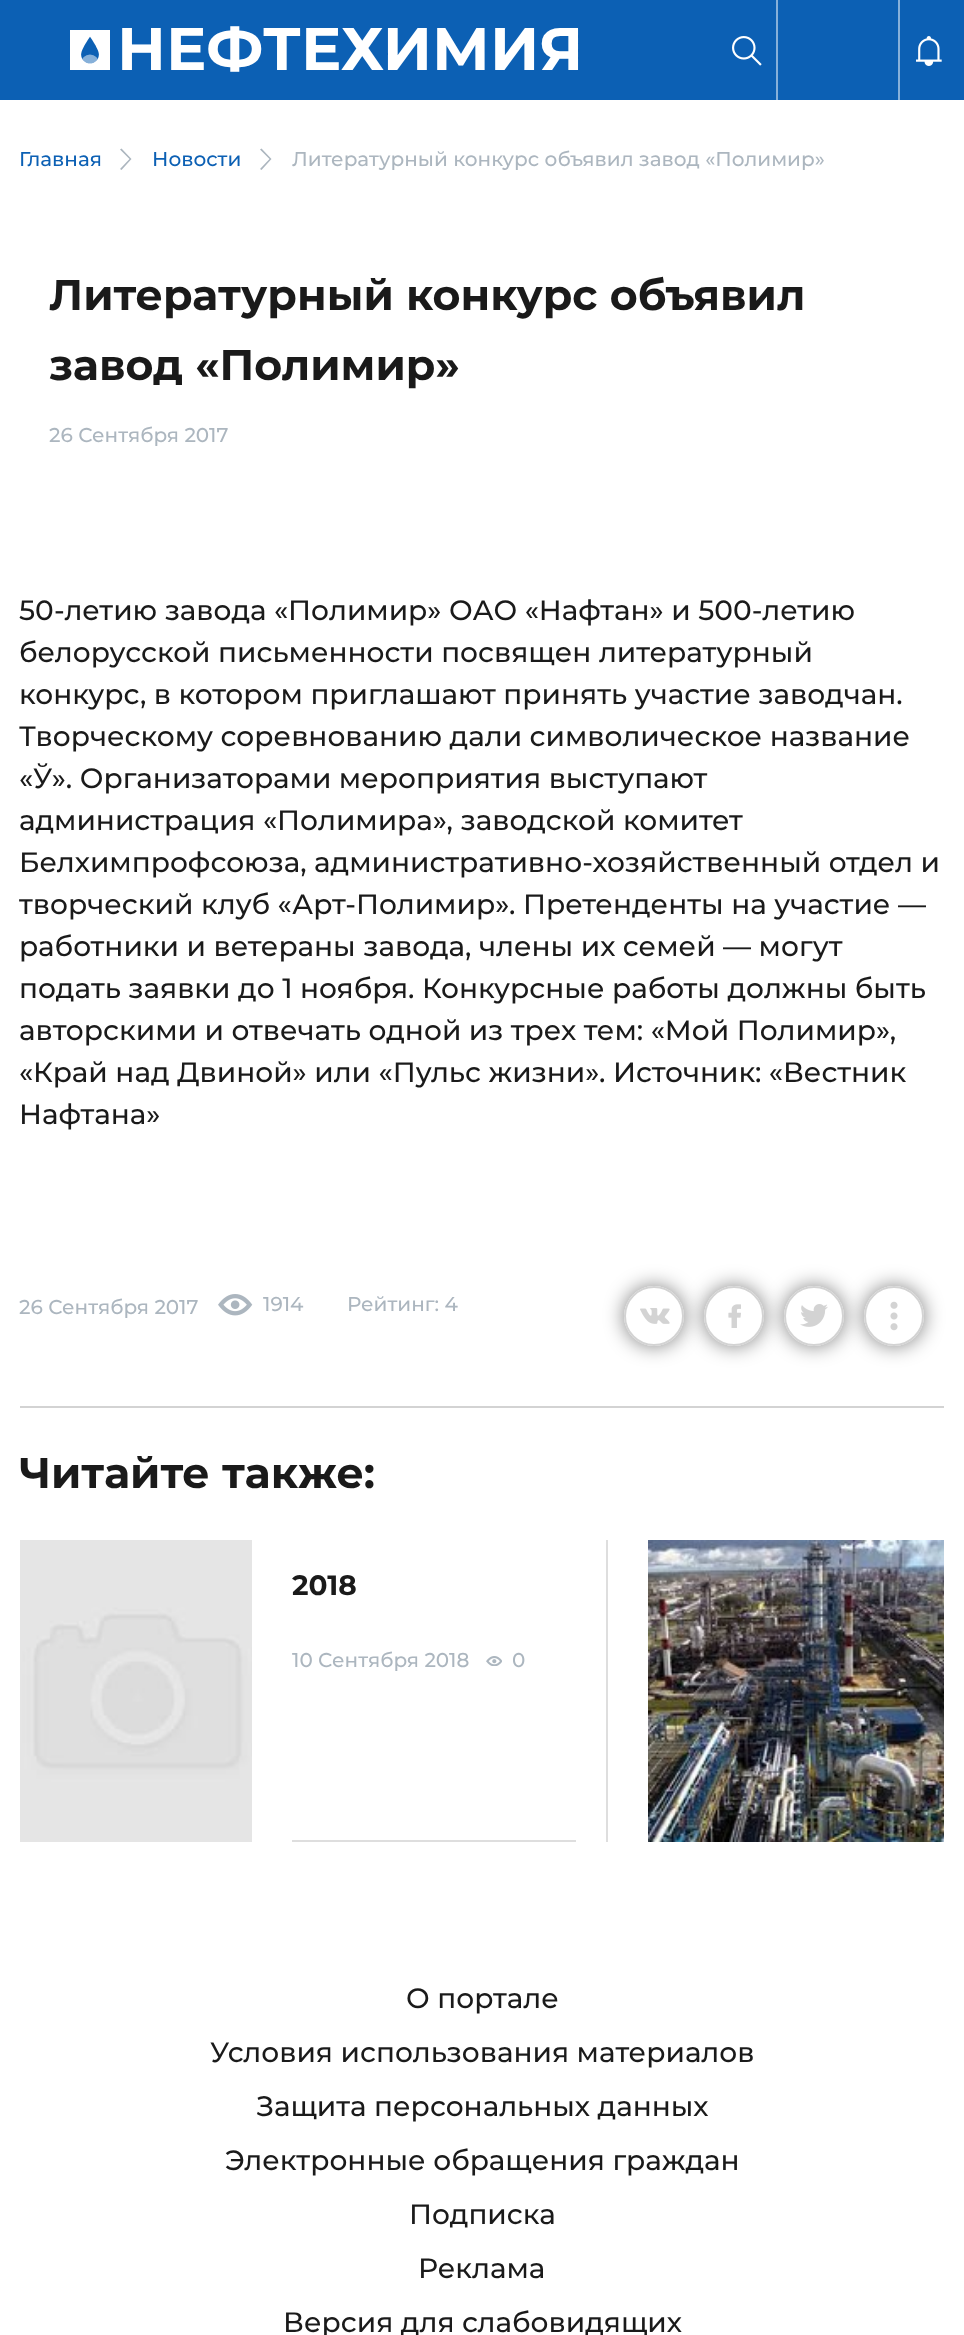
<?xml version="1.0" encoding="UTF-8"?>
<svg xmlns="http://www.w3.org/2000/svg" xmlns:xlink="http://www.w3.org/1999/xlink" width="964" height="2335">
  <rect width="100%" height="100%" fill="#ffffff" />
  <rect width="964" height="100" fill="#0c60b4" />
  <image x="70" y="30" width="40" height="40" xlink:href="image1.png" />
  <rect x="776" width="2" height="100" fill="#86b0da" />
  <image x="732" y="36" width="30" height="30" xlink:href="image2.png" />
  <rect x="898" width="2" height="100" fill="#86b0da" />
  <image x="916" y="36" width="26" height="30" xlink:href="image3.png" />
  <path d="M 129.5 159 l -9.5 -9.5 l 1.5 -1 l 10 10.5 l -10 11 l -1.5 -1 z" fill="#acb6bf" />
  <path d="M 269.5 159 l -9.5 -9.5 l 1.5 -1 l 10 10.5 l -10 11 l -1.5 -1 z" fill="#acb6bf" />
  <image x="218" y="1294" width="35" height="22" xlink:href="image4.png" />
  <rect x="624" y="1286" width="60" height="60" rx="30" fill="#000000" fill-opacity="0.5" filter="blur(10px)" />
  <circle cx="654" cy="1316" r="30" fill="#ffffff" />
  <image x="640" y="1308" width="30" height="16" xlink:href="image5.png" />
  <circle cx="654" cy="1316" r="29" fill="none" stroke="#d3d3d3" stroke-width="2" />
  <rect x="704" y="1286" width="60" height="60" rx="30" fill="#000000" fill-opacity="0.5" filter="blur(10px)" />
  <circle cx="734" cy="1316" r="30" fill="#ffffff" />
  <image x="728" y="1304" width="13" height="24" xlink:href="image6.png" />
  <circle cx="734" cy="1316" r="29" fill="none" stroke="#d3d3d3" stroke-width="2" />
  <rect x="784" y="1286" width="60" height="60" rx="30" fill="#000000" fill-opacity="0.5" filter="blur(10px)" />
  <circle cx="814" cy="1316" r="30" fill="#ffffff" />
  <image x="800" y="1304" width="28" height="23" xlink:href="image7.png" />
  <circle cx="814" cy="1316" r="29" fill="none" stroke="#d3d3d3" stroke-width="2" />
  <rect x="864" y="1286" width="60" height="60" rx="30" fill="#000000" fill-opacity="0.5" filter="blur(10px)" />
  <circle cx="894" cy="1316" r="30" fill="#ffffff" />
  <image x="890" y="1301" width="8" height="30" xlink:href="image8.png" />
  <circle cx="894" cy="1316" r="29" fill="none" stroke="#d3d3d3" stroke-width="2" />
  <rect x="20" y="1406" width="924" height="2" fill="#d3d3d3" />
  <rect x="606" y="1540" width="2" height="302" fill="#dedede" />
  <image x="20" y="1540" width="232" height="302" xlink:href="image9.png" />
  <rect x="292" y="1840" width="284" height="2" fill="#dedede" />
  <image x="486" y="1656" width="16" height="10" xlink:href="image10.png" />
  <image x="648" y="1540" width="296" height="302" xlink:href="image11.png" />
  <text x="117" y="70" style="font-family: Montserrat; font-size: 60px; font-weight: bold; fill: #ffffff">НЕФТЕХИМИЯ</text>
  <text x="19" y="166" style="font-family: Montserrat; font-size: 20px; font-weight: 500; fill: #0c60b4">Главная</text>
  <text x="152" y="166" style="font-family: Montserrat; font-size: 20px; font-weight: 500; fill: #0c60b4">Новости</text>
  <text x="292" y="166" style="font-family: Montserrat; font-size: 20px; font-weight: 500; fill: #acb6bf">Литературный конкурс объявил завод «Полимир»</text>
  <text x="49" y="310" style="font-family: Montserrat; font-size: 42.75px; font-weight: bold; fill: #1a1a1a">Литературный конкурс объявил</text>
  <text x="49" y="380" style="font-family: Montserrat; font-size: 42.75px; font-weight: bold; fill: #1a1a1a">завод «Полимир»</text>
  <text x="49" y="442" style="font-family: Montserrat; font-size: 20px; font-weight: 500; fill: #acb6bf">26 Сентября 2017</text>
  <text x="19" y="620" style="font-family: Montserrat; font-size: 28px; font-weight: 500; fill: #1a1a1a">50-летию завода «Полимир» ОАО «Нафтан» и 500-летию</text>
  <text x="19" y="662" style="font-family: Montserrat; font-size: 28px; font-weight: 500; fill: #1a1a1a">белорусской письменности посвящен литературный</text>
  <text x="19" y="704" style="font-family: Montserrat; font-size: 28px; font-weight: 500; fill: #1a1a1a">конкурс, в котором приглашают принять участие заводчан.</text>
  <text x="19" y="746" style="font-family: Montserrat; font-size: 28px; font-weight: 500; fill: #1a1a1a">Творческому соревнованию дали символическое название</text>
  <text x="19" y="788" style="font-family: Montserrat; font-size: 28px; font-weight: 500; fill: #1a1a1a">«Ў». Организаторами мероприятия выступают</text>
  <text x="19" y="830" style="font-family: Montserrat; font-size: 28px; font-weight: 500; fill: #1a1a1a">администрация «Полимира», заводской комитет</text>
  <text x="19" y="872" style="font-family: Montserrat; font-size: 28px; font-weight: 500; fill: #1a1a1a">Белхимпрофсоюза, административно-хозяйственный отдел и</text>
  <text x="19" y="914" style="font-family: Montserrat; font-size: 28px; font-weight: 500; fill: #1a1a1a">творческий клуб «Арт-Полимир». Претенденты на участие —</text>
  <text x="19" y="956" style="font-family: Montserrat; font-size: 28px; font-weight: 500; fill: #1a1a1a">работники и ветераны завода, члены их семей — могут</text>
  <text x="19" y="998" style="font-family: Montserrat; font-size: 28px; font-weight: 500; fill: #1a1a1a">подать заявки до 1 ноября. Конкурсные работы должны быть</text>
  <text x="19" y="1040" style="font-family: Montserrat; font-size: 28px; font-weight: 500; fill: #1a1a1a">авторскими и отвечать одной из трех тем: «Мой Полимир»,</text>
  <text x="19" y="1082" style="font-family: Montserrat; font-size: 28px; font-weight: 500; fill: #1a1a1a">«Край над Двиной» или «Пульс жизни». Источник: «Вестник</text>
  <text x="19" y="1124" style="font-family: Montserrat; font-size: 28px; font-weight: 500; fill: #1a1a1a">Нафтана»</text>
  <text x="19" y="1314" style="font-family: Montserrat; font-size: 20px; font-weight: 500; fill: #acb6bf">26 Сентября 2017</text>
  <text x="263" y="1311" style="font-family: Montserrat; font-size: 20px; font-weight: 500; fill: #acb6bf">1914</text>
  <text x="347" y="1311" style="font-family: Montserrat; font-size: 20px; font-weight: 500; fill: #acb6bf">Рейтинг: 4</text>
  <text x="19" y="1488" style="font-family: Montserrat; font-size: 42.75px; font-weight: bold; fill: #1a1a1a">Читайте также:</text>
  <text x="292" y="1595" style="font-family: Montserrat; font-size: 28px; font-weight: bold; fill: #1a1a1a">2018</text>
  <text x="292" y="1667" style="font-family: Montserrat; font-size: 20px; font-weight: 500; fill: #acb6bf">10 Сентября 2018</text>
  <text x="512" y="1667" style="font-family: Montserrat; font-size: 20px; font-weight: 500; fill: #acb6bf">0</text>
  <text x="406" y="2008" style="font-family: Montserrat; font-size: 28px; font-weight: 500; fill: #1a1a1a">О портале</text>
  <text x="210" y="2062" style="font-family: Montserrat; font-size: 28px; font-weight: 500; fill: #1a1a1a">Условия использования материалов</text>
  <text x="256" y="2116" style="font-family: Montserrat; font-size: 28px; font-weight: 500; fill: #1a1a1a">Защита персональных данных</text>
  <text x="225" y="2170" style="font-family: Montserrat; font-size: 28px; font-weight: 500; fill: #1a1a1a">Электронные обращения граждан</text>
  <text x="409" y="2224" style="font-family: Montserrat; font-size: 28px; font-weight: 500; fill: #1a1a1a">Подписка</text>
  <text x="418" y="2278" style="font-family: Montserrat; font-size: 28px; font-weight: 500; fill: #1a1a1a">Реклама</text>
  <text x="283" y="2332" style="font-family: Montserrat; font-size: 28px; font-weight: 500; fill: #1a1a1a">Версия для слабовидящих</text>
</svg>
